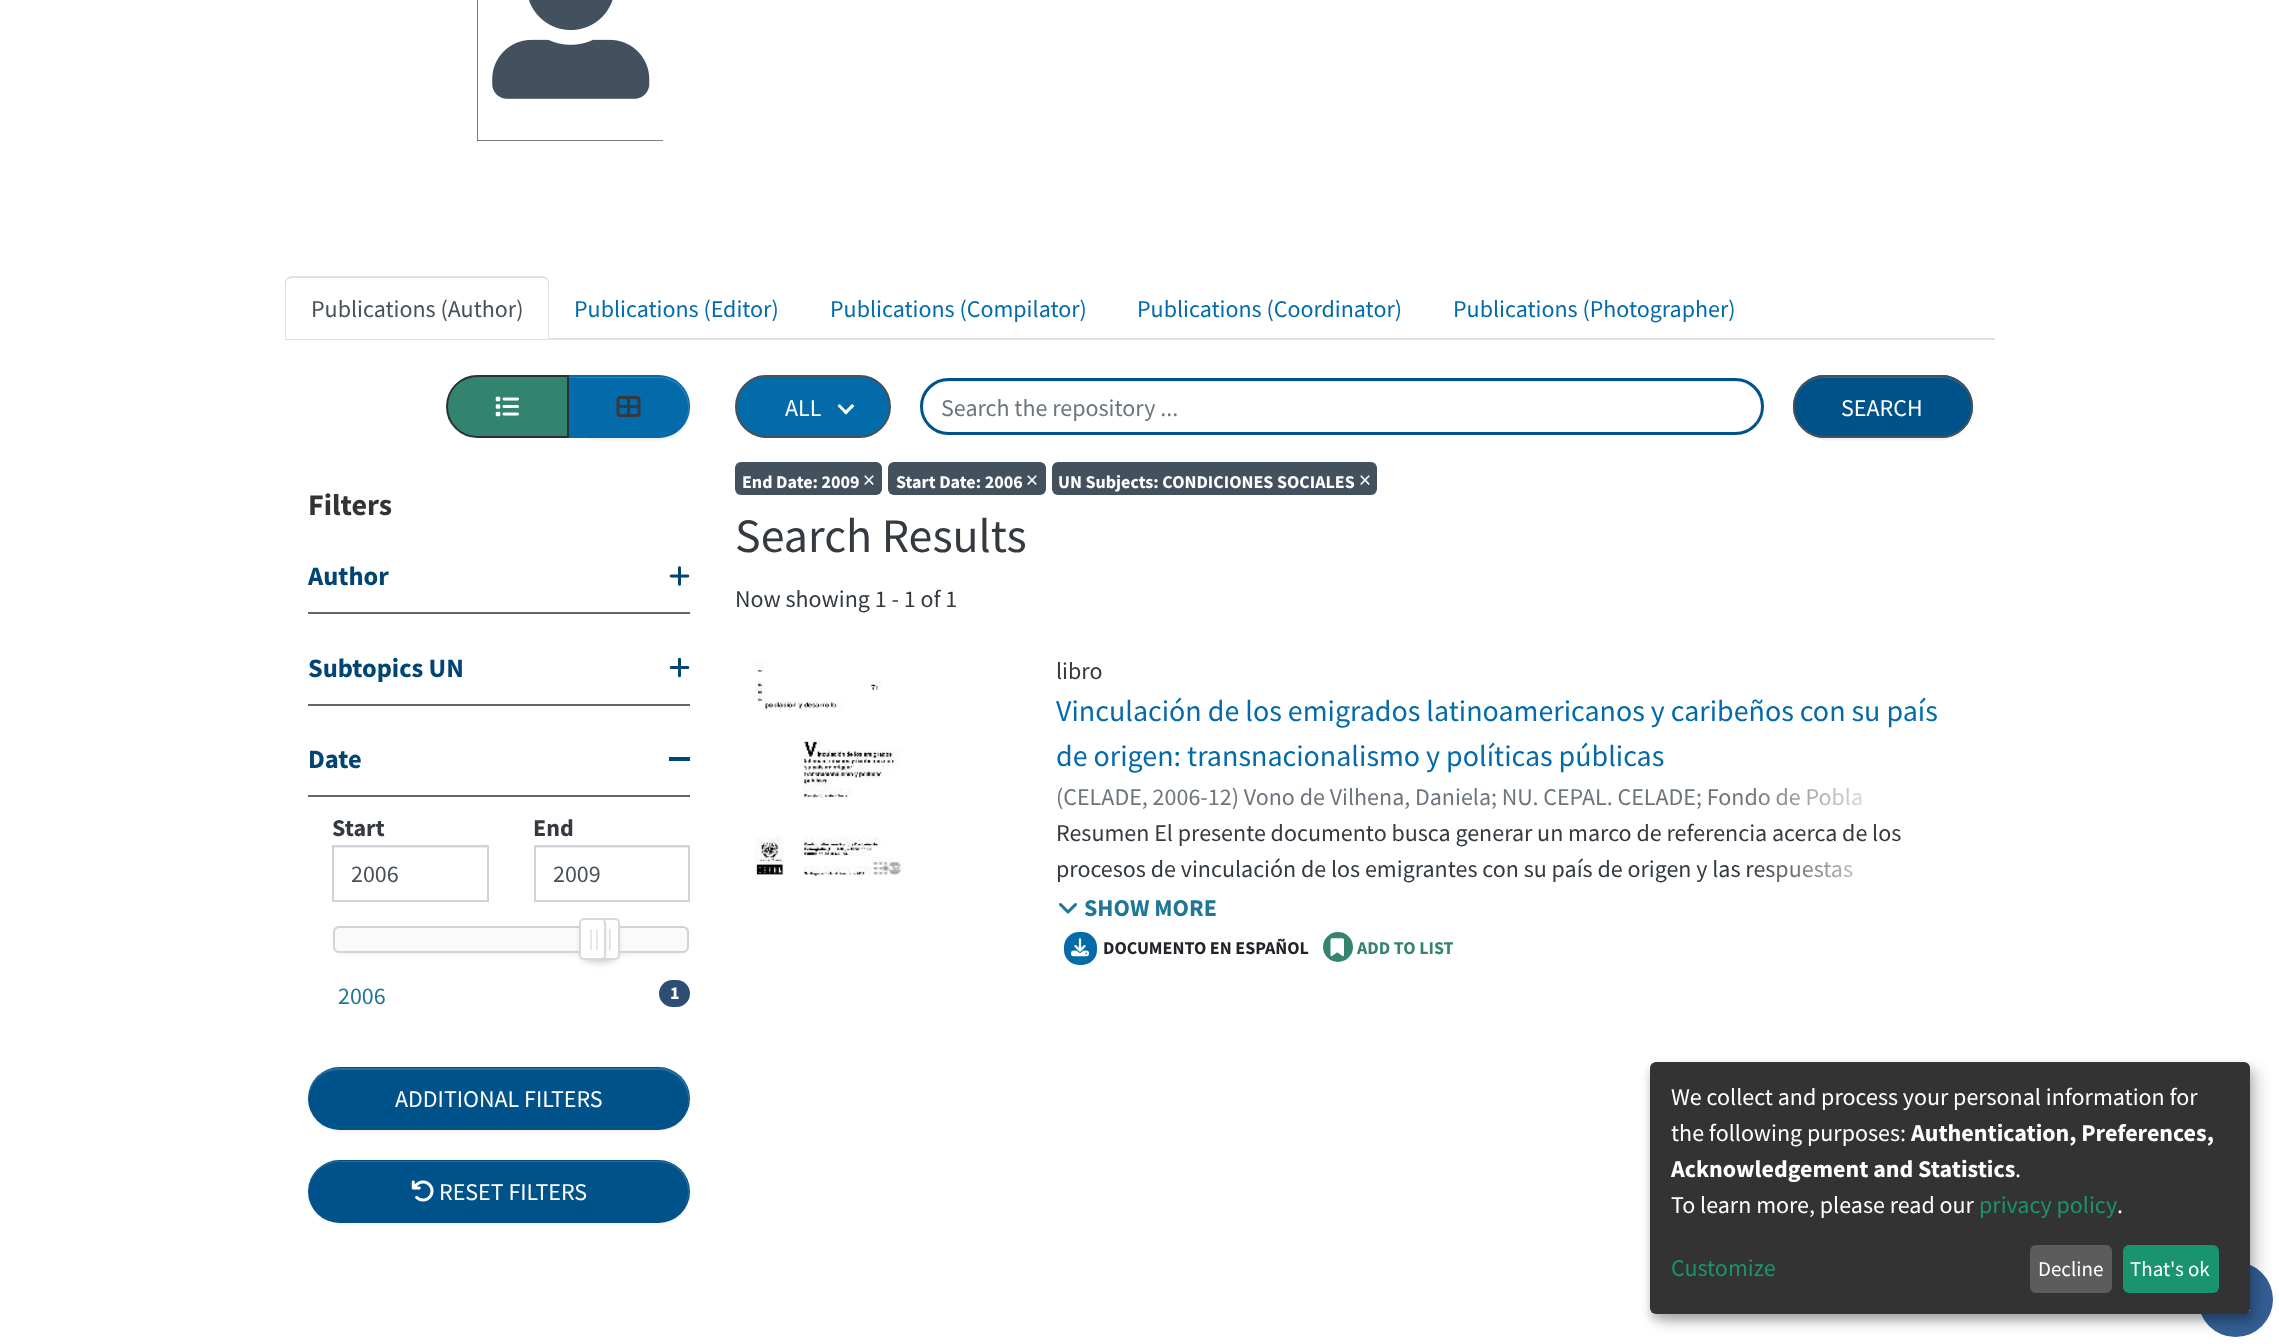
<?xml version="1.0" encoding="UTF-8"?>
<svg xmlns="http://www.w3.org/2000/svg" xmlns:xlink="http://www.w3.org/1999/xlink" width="2279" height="1344">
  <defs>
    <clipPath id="clip1"><rect x="554" y="858" width="117" height="30" /></clipPath>
    <linearGradient id="g1" gradientUnits="userSpaceOnUse" x1="1748" y1="797" x2="1973" y2="797"><stop offset="0" stop-color="#ffffff" stop-opacity="0" /><stop offset="0.7" stop-color="#ffffff" /></linearGradient>
    <linearGradient id="g2" gradientUnits="userSpaceOnUse" x1="1748" y1="869" x2="1973" y2="869"><stop offset="0" stop-color="#ffffff" stop-opacity="0" /><stop offset="0.7" stop-color="#ffffff" /></linearGradient>
  </defs>
  <rect width="100%" height="100%" fill="#ffffff" />
  <image x="477" y="0" width="186" height="141" xlink:href="image1.png" />
  <rect x="285" y="338" width="1710" height="2" fill="#dee2e6" />
  <path d="M 291 276 h 252 c 3.5 0 6 2.5 6 6 v 57 h -264 v -57 c 0 -3.5 2.5 -6 6 -6 z" fill="#ffffff" />
  <path d="M 291 276 c -1 0 -3 1 -4 2 l 1 1 l 3 -1 h 252 l 3 1 l 1 -1 c -1 -1 -3 -2 -4 -2 z" fill="#dee2e6" />
  <path d="M 549 339 v -57 c 0 -2 -1 -3 -2 -4 l -1 1 l 2 3 v 56 z" fill="#dee2e6" />
  <path d="M 549 339 l -1 -1 h -262 l -1 1 z" fill="#ffffff" />
  <path d="M 285 339 l 1 -1 v -56 l 2 -3 l -1 -1 c -1 1 -2 2 -2 4 z" fill="#dee2e6" />
  <rect x="567" y="377" width="123" height="63" rx="31.5" fill="#000000" fill-opacity="0.07" filter="blur(1px)" />
  <path d="M 567 375 h 91.5 c 17.5 0 31.5 14 31.5 31.5 c 0 17.5 -14 31.5 -31.5 31.5 h -91.5 z" fill="#036baa" />
  <path d="M 477.5 376 h 90.5 v 61 h -90.5 c -17 0 -30.5 -13.5 -30.5 -30.5 c 0 -17 13.5 -30.5 30.5 -30.5 z" fill="#32846f" stroke="#2c3034" stroke-width="2" />
  <image x="495" y="396" width="24" height="21" xlink:href="image2.png" />
  <path d="M 569 377 v 1 h 89 c 17 0 30 13 30 30 c 0 7 -2 13 -5 17 c 15 -19 1 -48 -24 -48 z" fill="#2981b7" />
  <image x="616" y="396" width="25" height="21" xlink:href="image3.png" />
  <rect x="308" y="612" width="382" height="2" fill="#666666" />
  <image x="669" y="566" width="21" height="20" xlink:href="image4.png" />
  <rect x="308" y="704" width="382" height="2" fill="#666666" />
  <image x="669" y="657" width="21" height="21" xlink:href="image5.png" />
  <rect x="308" y="795" width="382" height="2" fill="#666666" />
  <rect x="669" y="757" width="21" height="4" fill="#004574" />
  <rect x="333" y="847" width="155" height="1" fill="#ececec" />
  <rect x="333" y="846" width="155" height="55" fill="none" stroke="#ced4da" stroke-width="2" />
  <rect x="536" y="847" width="153" height="1" fill="#ececec" />
  <rect x="535" y="846" width="154" height="55" fill="none" stroke="#ced4da" stroke-width="2" />
  <rect x="341" y="938" width="340" height="12" fill="#bbbbbb" filter="blur(4.5px)" />
  <rect x="333" y="926" width="356" height="27" rx="6" fill="#fafafa" />
  <path d="M 339 928 h 343 c 3 0 5 3 5 5 v -1 c 0 -3 -2 -5 -5 -5 h -342 c -2 0 -4 1 -5 3 c 1 -1 3 -2 4 -2 z" fill="#f0f0f0" />
  <rect x="334" y="927" width="354" height="25" rx="5" fill="none" stroke="#d3d3d3" stroke-width="2" />
  <rect x="597" y="927" width="18" height="33" fill="#bbbbbb" filter="blur(4.5px)" />
  <rect x="594" y="919" width="25" height="40" rx="4" fill="#ffffff" stroke="#d9d9d9" stroke-width="2" />
  <rect x="609" y="929" width="2" height="21" fill="#e8e7e6" />
  <rect x="584" y="927" width="18" height="33" fill="#bbbbbb" filter="blur(4.5px)" />
  <rect x="580" y="919" width="25" height="40" rx="4" fill="#ffffff" stroke="#d9d9d9" stroke-width="2" />
  <rect x="590" y="929" width="2" height="21" fill="#e8e7e6" />
  <rect x="596" y="929" width="2" height="21" fill="#e8e7e6" />
  <rect x="659" y="980" width="31" height="27" rx="13.5" fill="#2b4e72" />
  <rect x="308" y="1068" width="382" height="63" rx="31.5" fill="#000000" fill-opacity="0.07" filter="blur(1px)" />
  <rect x="308" y="1067" width="382" height="63" rx="31.5" fill="#00528a" />
  <path d="M 339 1070 h 319 c 17 0 30 13 30 30 c 0 5 -1 9 -3 13 c 3 -5 4 -10 4 -15 c 0 -17 -13 -30 -30 -30 h -320 c -17 0 -30 13 -30 30 v 1 c 1 -17 13 -29 30 -29 z" fill="#266c9c" />
  <rect x="308" y="1161" width="382" height="63" rx="31.5" fill="#000000" fill-opacity="0.07" filter="blur(1px)" />
  <rect x="308" y="1160" width="382" height="63" rx="31.5" fill="#00528a" />
  <path d="M 339 1162 h 319 c 17 0 30 14 30 30 c 0 7 -2 13 -5 17 c 4 -5 6 -11 6 -18 c 0 -17 -13 -30 -30 -30 h -320 c -17 0 -30 13 -30 30 v 1 c 0 -16 13 -30 30 -30 z" fill="#266c9c" />
  <image x="411" y="1180" width="23" height="22" xlink:href="image6.png" />
  <rect x="736" y="376" width="154" height="61" rx="30.5" fill="#036baa" stroke="#495057" stroke-width="2" />
  <path d="M 852 404 l 2.5 2 l -8.5 8.5 l -2.5 -2 z" fill="#ffffff" />
  <path d="M 839.5 404 l 8.5 8.5 l -2 2 l -8.5 -8.5 z" fill="#ffffff" />
  <path d="M 948 382 h 788 c 14 0 25 12 25 25 v -1 c 0 -14 -11 -25 -25 -25 h -788 c -9 0 -17 5 -22 13 c 5 -7 13 -12 22 -12 z" fill="#ececec" />
  <rect x="921.5" y="379.5" width="841" height="54" rx="27" fill="none" stroke="#00528a" stroke-width="3" />
  <rect x="1793" y="377" width="180" height="63" rx="31.5" fill="#000000" fill-opacity="0.07" filter="blur(1px)" />
  <rect x="1793" y="375" width="180" height="63" rx="31.5" fill="#00528a" />
  <path d="M 1824 378 h 117 c 17 0 30 13 30 29 c 0 -17 -13 -30 -30 -30 h -117 c -17 0 -30 13 -30 30 c 0 -16 13 -29 30 -29 z" fill="#266c9c" />
  <rect x="1794" y="376" width="178" height="61" rx="30.5" fill="none" stroke="#43515f" stroke-width="2" />
  <rect x="735" y="462" width="147" height="33" rx="6" fill="#43515f" />
  <rect x="888" y="462" width="158" height="33" rx="6" fill="#43515f" />
  <rect x="1052" y="462" width="325" height="33" rx="6" fill="#43515f" />
  <image x="754" y="662" width="147" height="214" xlink:href="image7.png" />
  <image x="1059" y="903" width="18" height="11" xlink:href="image8.png" />
  <rect x="1064" y="932" width="33" height="33" rx="15" fill="#036baa" />
  <image x="1071" y="938" width="18" height="19" xlink:href="image9.png" />
  <circle cx="1338" cy="947" r="15" fill="#34846f" />
  <image x="1330" y="938" width="14" height="19" xlink:href="image10.png" />
  <circle cx="2235.5" cy="1299.5" r="37.5" fill="#346097" />
  <image x="2249" y="1309" width="1" height="2" xlink:href="image11.png" />
  <rect x="1658" y="1070" width="600" height="252" rx="6" fill="#000000" fill-opacity="0.19" filter="blur(7.5px)" />
  <rect x="1650" y="1068" width="600" height="252" rx="6" fill="#000000" fill-opacity="0.2" filter="blur(4.5px)" />
  <rect x="1650" y="1062" width="600" height="252" rx="6" fill="#333333" />
  <rect x="2030" y="1245" width="82" height="48" rx="6" fill="#5c5c5c" />
  <rect x="2123" y="1245" width="96" height="48" rx="6" fill="#1a936f" />
  <text x="311" y="317" style="font-family: Source Sans Pro; font-size: 24px; fill: #495057">Publications (Author)</text>
  <text x="574" y="317" style="font-family: Source Sans Pro; font-size: 24px; fill: #036baa">Publications (Editor)</text>
  <text x="830" y="317" style="font-family: Source Sans Pro; font-size: 24px; fill: #036baa">Publications (Compilator)</text>
  <text x="1137" y="317" style="font-family: Source Sans Pro; font-size: 24px; fill: #036baa">Publications (Coordinator)</text>
  <text x="1453" y="317" style="font-family: Source Sans Pro; font-size: 24px; fill: #036baa">Publications (Photographer)</text>
  <text x="308" y="515" style="font-family: Source Sans Pro; font-size: 30px; font-weight: bold; fill: #333333">Filters</text>
  <text x="308" y="585" style="font-family: Source Sans Pro; font-size: 26.5px; font-weight: bold; fill: #004574">Author</text>
  <text x="308" y="677" style="font-family: Source Sans Pro; font-size: 26.5px; font-weight: bold; fill: #004574">Subtopics UN</text>
  <text x="308" y="768" style="font-family: Source Sans Pro; font-size: 26.5px; font-weight: bold; fill: #004574">Date</text>
  <text x="332" y="836" style="font-family: Source Sans Pro; font-size: 24px; font-weight: bold; fill: #343a40">Start</text>
  <text x="351" y="882" style="font-family: Source Sans Pro; font-size: 24px; fill: #495057">2006</text>
  <text x="533" y="836" style="font-family: Source Sans Pro; font-size: 24px; font-weight: bold; fill: #343a40">End</text>
  <g clip-path="url(#clip1)">
    <text x="553" y="882" style="font-family: Source Sans Pro; font-size: 24px; fill: #495057">2009</text>
  </g>
  <text x="338" y="1004" style="font-family: Source Sans Pro; font-size: 24px; fill: #207698">2006</text>
  <text x="670" y="999" style="font-family: Source Sans Pro; font-size: 18px; font-weight: bold; fill: #ffffff">1</text>
  <text x="395" y="1107" style="font-family: Source Sans Pro; font-size: 24px; fill: #ffffff">ADDITIONAL FILTERS</text>
  <text x="439" y="1200" style="font-family: Source Sans Pro; font-size: 24px; fill: #ffffff">RESET FILTERS</text>
  <text x="785" y="416" style="font-family: Source Sans Pro; font-size: 24px; fill: #ffffff">ALL</text>
  <text x="941" y="416" style="font-family: Source Sans Pro; font-size: 24px; fill: #6c757d">Search the repository ...</text>
  <text x="1841" y="416" style="font-family: Source Sans Pro; font-size: 24px; fill: #ffffff">SEARCH</text>
  <text x="742" y="488" style="font-family: Source Sans Pro; font-size: 18px; font-weight: bold; fill: #ffffff">End Date: 2009</text>
  <text x="863" y="488" style="font-family: Source Sans Pro; font-size: 24px; fill: #ffffff">×</text>
  <text x="896" y="488" style="font-family: Source Sans Pro; font-size: 18px; font-weight: bold; fill: #ffffff">Start Date: 2006</text>
  <text x="1026" y="488" style="font-family: Source Sans Pro; font-size: 24px; fill: #ffffff">×</text>
  <text x="1058" y="488" style="font-family: Source Sans Pro; font-size: 18px; font-weight: bold; fill: #ffffff">UN Subjects: CONDICIONES SOCIALES</text>
  <text x="1359" y="488" style="font-family: Source Sans Pro; font-size: 24px; fill: #ffffff">×</text>
  <text x="735" y="552" style="font-family: Source Sans Pro; font-size: 48px; fill: #343a40">Search Results</text>
  <text x="735" y="607" style="font-family: Source Sans Pro; font-size: 24px; fill: #343a40">Now showing 1 - 1 of 1</text>
  <text x="1056" y="679" style="font-family: Source Sans Pro; font-size: 24px; fill: #343a40">libro</text>
  <text x="1056" y="721" style="font-family: Source Sans Pro; font-size: 30px; fill: #036baa">Vinculación de los emigrados latinoamericanos y caribeños con su país</text>
  <text x="1056" y="766" style="font-family: Source Sans Pro; font-size: 30px; fill: #036baa">de origen: transnacionalismo y políticas públicas</text>
  <text x="1056" y="805" style="font-family: Source Sans Pro; font-size: 24px; fill: #6c757d">(CELADE, 2006-12) Vono de Vilhena, Daniela; NU. CEPAL. CELADE; Fondo de Pobla</text>
  <rect x="1751" y="787" width="111" height="19" fill="url(#g1)" />
  <text x="1056" y="841" style="font-family: Source Sans Pro; font-size: 24px; fill: #343a40">Resumen El presente documento busca generar un marco de referencia acerca de los</text>
  <text x="1056" y="877" style="font-family: Source Sans Pro; font-size: 24px; fill: #343a40">procesos de vinculación de los emigrantes con su país de origen y las respuestas</text>
  <rect x="1751" y="862" width="101" height="20" fill="url(#g2)" />
  <text x="1084" y="916" style="font-family: Source Sans Pro; font-size: 24px; font-weight: bold; fill: #207698">SHOW MORE</text>
  <text x="1103" y="954" style="font-family: Source Sans Pro; font-size: 18px; font-weight: bold; fill: #212529">DOCUMENTO EN ESPAÑOL</text>
  <text x="1357" y="954" style="font-family: Source Sans Pro; font-size: 18px; font-weight: bold; fill: #34846f">ADD TO LIST</text>
  <text x="1671" y="1105" style="font-family: Source Sans Pro; font-size: 24px; fill: #ffffff">We collect and process your personal information for</text>
  <text x="1671" y="1141" style="font-family: Source Sans Pro; font-size: 24px; fill: #ffffff">the following purposes:</text>
  <text x="1911" y="1141" style="font-family: Source Sans Pro; font-size: 24px; font-weight: bold; fill: #ffffff">Authentication, Preferences,</text>
  <text x="1671" y="1177" style="font-family: Source Sans Pro; font-size: 24px; font-weight: bold; fill: #ffffff">Acknowledgement and Statistics</text>
  <text x="2015" y="1177" style="font-family: Source Sans Pro; font-size: 24px; fill: #ffffff">.</text>
  <text x="1671" y="1213" style="font-family: Source Sans Pro; font-size: 24px; fill: #ffffff">To learn more, please read our</text>
  <text x="1979" y="1213" style="font-family: Source Sans Pro; font-size: 24px; fill: #1a936f">privacy policy</text>
  <text x="2117" y="1213" style="font-family: Source Sans Pro; font-size: 24px; fill: #ffffff">.</text>
  <text x="1671" y="1276" style="font-family: Source Sans Pro; font-size: 24px; fill: #1a936f">Customize</text>
  <text x="2038" y="1276" style="font-family: Source Sans Pro; font-size: 21px; fill: #ffffff">Decline</text>
  <text x="2130" y="1276" style="font-family: Source Sans Pro; font-size: 21px; fill: #ffffff">That's ok</text>
</svg>
